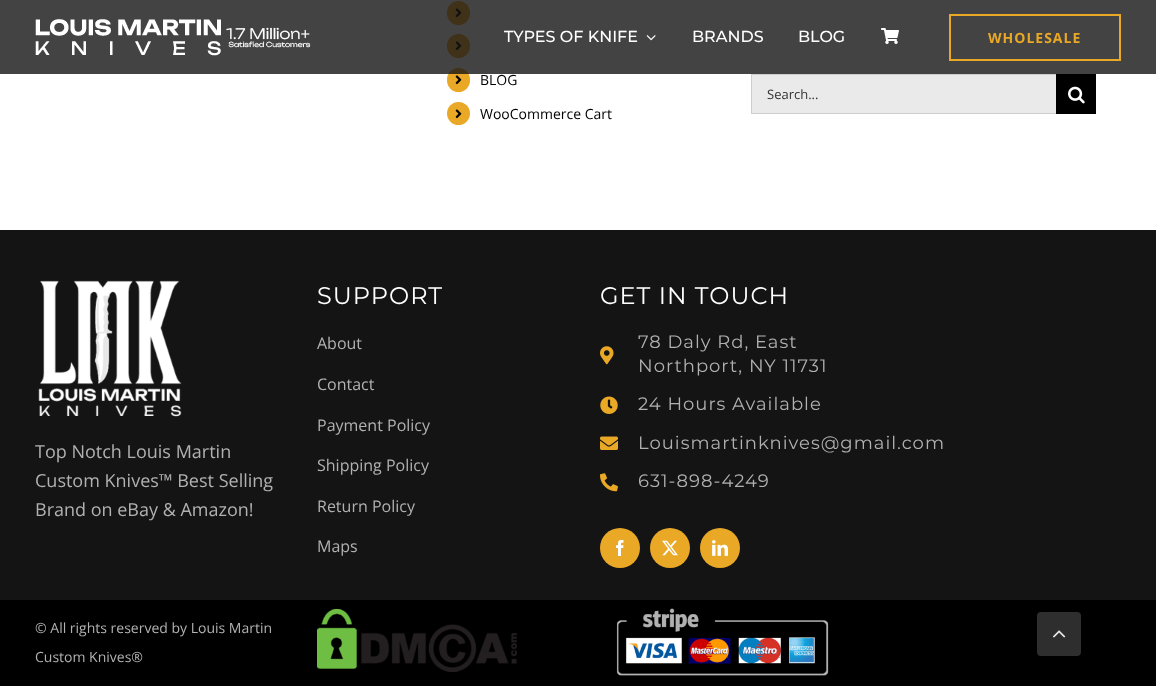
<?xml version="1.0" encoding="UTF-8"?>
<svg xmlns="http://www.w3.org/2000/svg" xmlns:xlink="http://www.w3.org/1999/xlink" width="1156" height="686">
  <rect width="100%" height="100%" fill="#ffffff" />
  <rect x="447" y="1" width="23" height="24" rx="11.5" fill="#e9a825" />
  <image x="455" y="8" width="7" height="10" xlink:href="image4.png" />
  <rect x="447" y="34" width="23" height="24" rx="11.5" fill="#e9a825" />
  <image x="455" y="41" width="7" height="10" xlink:href="image4.png" />
  <rect x="447" y="68" width="23" height="24" rx="11.5" fill="#e9a825" />
  <rect width="1156" height="74" fill="#151415" fill-opacity="0.8" />
  <image x="35" y="19" width="276" height="37" xlink:href="image1.png" />
  <image x="646" y="35" width="10" height="6" xlink:href="image2.png" />
  <image x="881" y="28" width="18" height="16" xlink:href="image3.png" />
  <rect x="950" y="15" width="170" height="45" fill="none" stroke="#e9a825" stroke-width="2" />
  <image x="455" y="75" width="7" height="10" xlink:href="image4.png" />
  <circle cx="458.5" cy="113.5" r="11.5" fill="#e9a825" />
  <image x="455" y="109" width="7" height="10" xlink:href="image4.png" />
  <rect x="752" y="75" width="304" height="38" fill="#eaeaea" />
  <rect x="751" y="74" width="305" height="1" fill="#cecece" />
  <rect x="751" y="113" width="305" height="1" fill="#cecece" />
  <rect x="751" y="74" width="1" height="40" fill="#cecece" />
  <rect x="1056" y="74" width="40" height="40" fill="#000000" />
  <image x="1068" y="86" width="17" height="18" xlink:href="image5.png" />
  <rect y="230" width="1156" height="370" fill="#151415" />
  <image x="38" y="280" width="144" height="137" xlink:href="image6.png" />
  <image x="600" y="346" width="14" height="19" xlink:href="image7.png" />
  <image x="600" y="396" width="18" height="18" xlink:href="image8.png" />
  <image x="600" y="436" width="18" height="14" xlink:href="image9.png" />
  <image x="600" y="473" width="18" height="19" xlink:href="image10.png" />
  <circle cx="620" cy="548" r="20" fill="#e9a825" />
  <image x="616" y="540" width="8" height="16" xlink:href="image11.png" />
  <circle cx="670" cy="548" r="20" fill="#e9a825" />
  <image x="662" y="540" width="16" height="16" xlink:href="image12.png" />
  <circle cx="720" cy="548" r="20" fill="#e9a825" />
  <image x="712" y="540" width="16" height="16" xlink:href="image13.png" />
  <rect y="600" width="1156" height="86" fill="#000000" />
  <image x="317" y="609" width="200" height="63" xlink:href="image14.png" />
  <image x="616" y="608" width="213" height="68" xlink:href="image15.png" />
  <rect x="1037" y="612" width="44" height="44" rx="4" fill="#2e2e2e" />
  <image x="1053" y="630" width="13" height="8" xlink:href="image16.png" />
  <text x="504" y="42" style="font-family: Montserrat; font-size: 16px; font-weight: 500; fill: #ffffff">TYPES OF KNIFE</text>
  <text x="692" y="42" style="font-family: Montserrat; font-size: 16px; font-weight: 500; fill: #ffffff">BRANDS</text>
  <text x="798" y="42" style="font-family: Montserrat; font-size: 16px; font-weight: 500; fill: #ffffff">BLOG</text>
  <text x="988" y="43" style="font-family: Open Sans; font-size: 14px; font-weight: bold; letter-spacing: 1px; fill: #e9a825">WHOLESALE</text>
  <text x="480" y="85" style="font-family: Open Sans; font-size: 14px; fill: #000000">BLOG</text>
  <text x="480" y="119" style="font-family: Open Sans; font-size: 14px; fill: #000000">WooCommerce Cart</text>
  <text x="767" y="99" style="font-family: Open Sans; font-size: 13px; fill: #333333">Search...</text>
  <text x="35" y="458" style="font-family: Open Sans; font-size: 18px; fill: #b1b1b1">Top Notch Louis Martin</text>
  <text x="35" y="487" style="font-family: Open Sans; font-size: 18px; fill: #b1b1b1">Custom Knives™ Best Selling</text>
  <text x="35" y="516" style="font-family: Open Sans; font-size: 18px; fill: #b1b1b1">Brand on eBay &amp; Amazon!</text>
  <text x="317" y="304" style="font-family: Montserrat; font-size: 24px; letter-spacing: 1px; fill: #ffffff">SUPPORT</text>
  <text x="317" y="349" style="font-family: Open Sans; font-size: 16px; fill: #b1b1b1">About</text>
  <text x="317" y="390" style="font-family: Open Sans; font-size: 16px; fill: #b1b1b1">Contact</text>
  <text x="317" y="431" style="font-family: Open Sans; font-size: 16px; fill: #b1b1b1">Payment Policy</text>
  <text x="317" y="471" style="font-family: Open Sans; font-size: 16px; fill: #b1b1b1">Shipping Policy</text>
  <text x="317" y="512" style="font-family: Open Sans; font-size: 16px; fill: #b1b1b1">Return Policy</text>
  <text x="317" y="552" style="font-family: Open Sans; font-size: 16px; fill: #b1b1b1">Maps</text>
  <text x="600" y="304" style="font-family: Montserrat; font-size: 24px; letter-spacing: 1px; fill: #ffffff">GET IN TOUCH</text>
  <text x="638" y="348" style="font-family: Montserrat; font-size: 18px; letter-spacing: 1px; fill: #b1b1b1">78 Daly Rd, East</text>
  <text x="638" y="372" style="font-family: Montserrat; font-size: 18px; letter-spacing: 1px; fill: #b1b1b1">Northport, NY 11731</text>
  <text x="638" y="410" style="font-family: Montserrat; font-size: 18px; letter-spacing: 1px; fill: #b1b1b1">24 Hours Available</text>
  <text x="638" y="449" style="font-family: Montserrat; font-size: 18px; letter-spacing: 1px; fill: #b1b1b1">Louismartinknives@gmail.com</text>
  <text x="638" y="487" style="font-family: Montserrat; font-size: 18px; letter-spacing: 1px; fill: #b1b1b1">631-898-4249</text>
  <text x="35" y="633" style="font-family: Open Sans; font-size: 14px; fill: #b1b1b1">© All rights reserved by Louis Martin</text>
  <text x="35" y="662" style="font-family: Open Sans; font-size: 14px; fill: #b1b1b1">Custom Knives®</text>
</svg>
